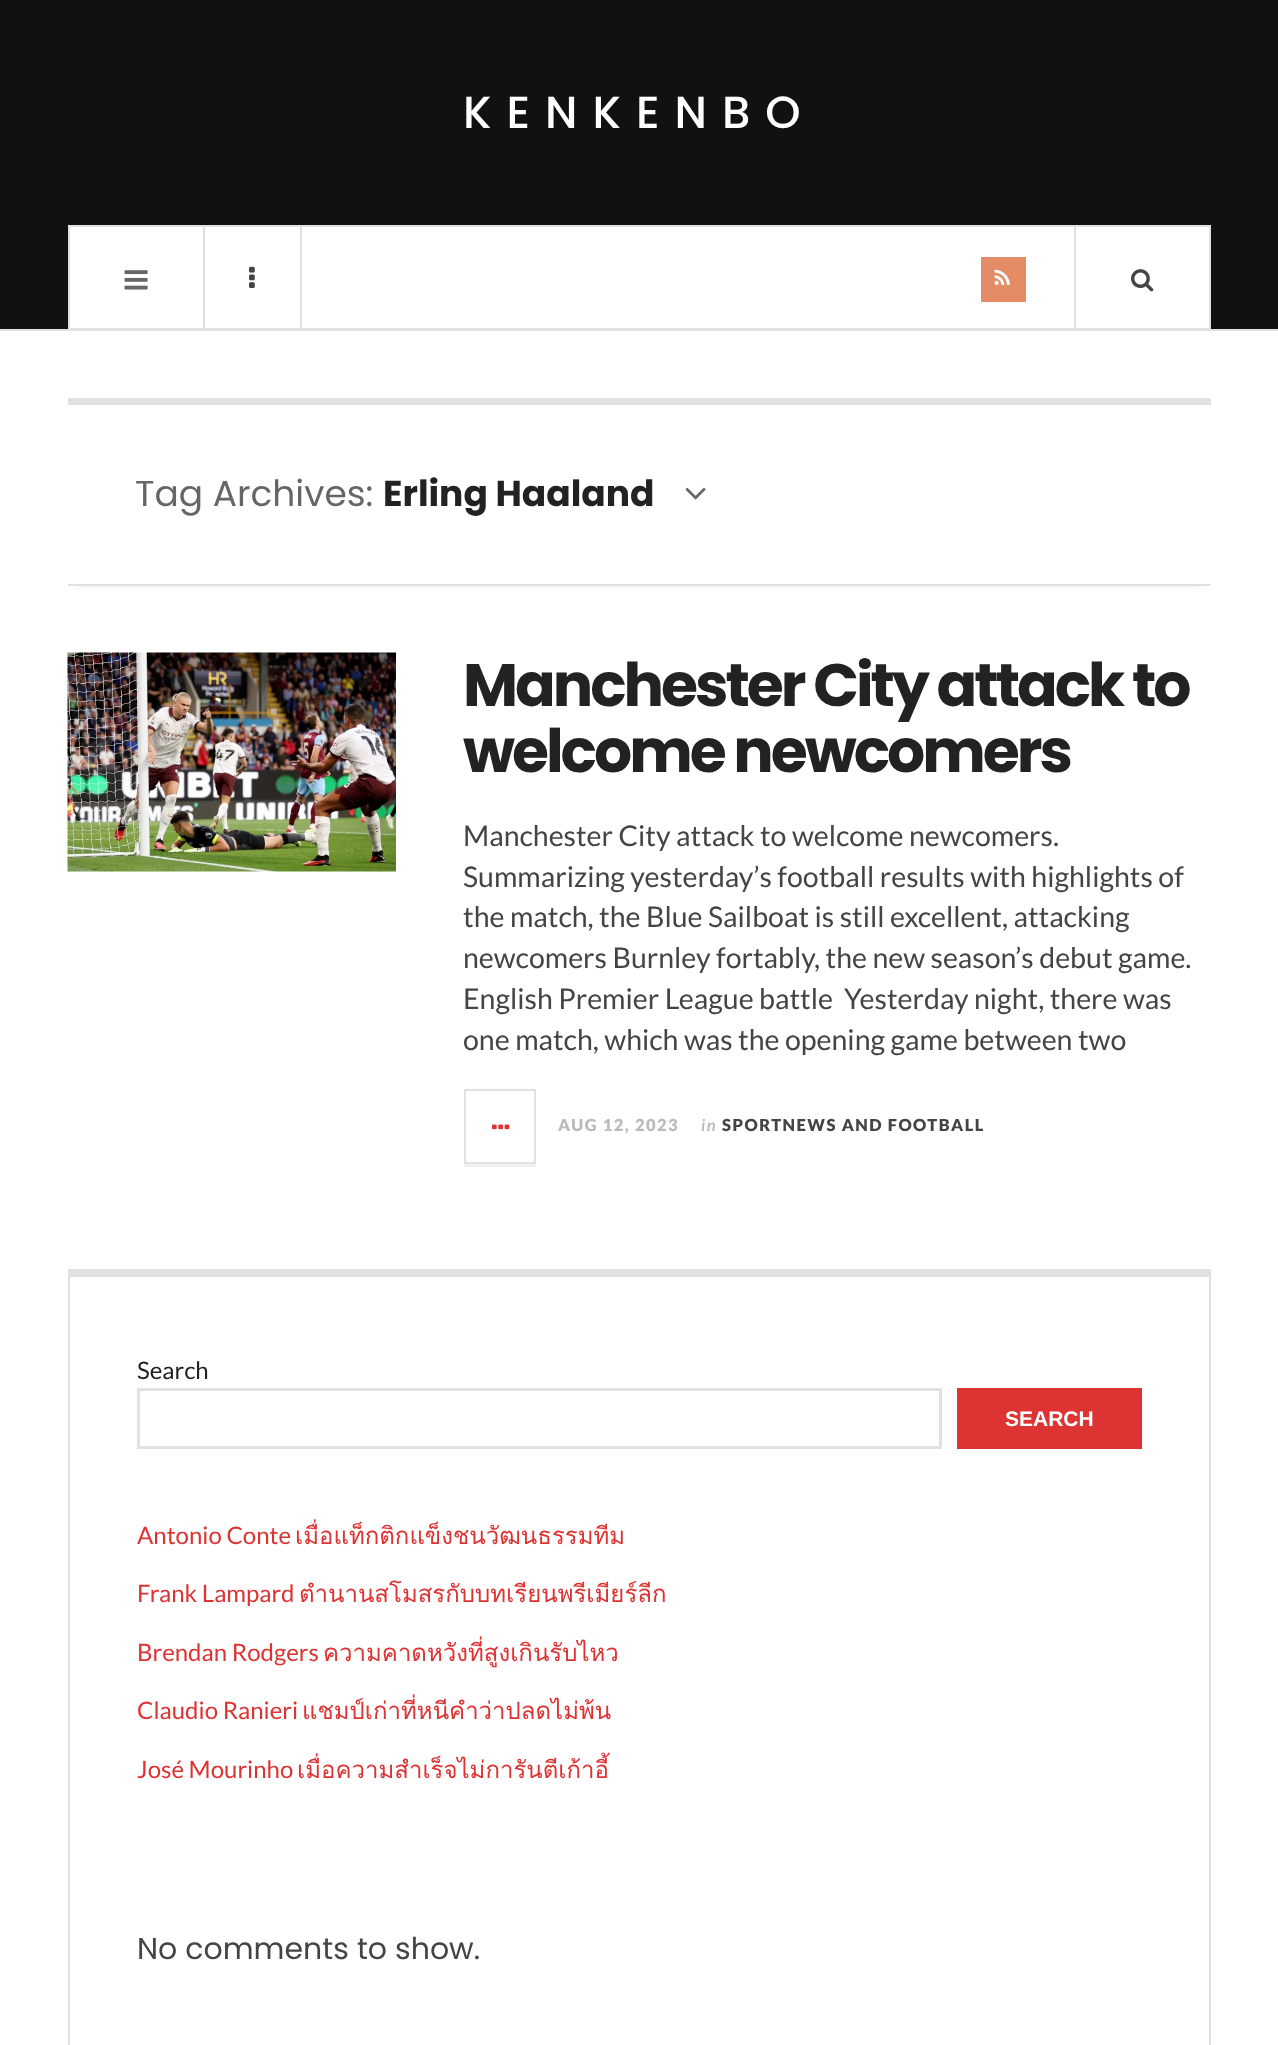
<?xml version="1.0" encoding="UTF-8"?>
<svg xmlns="http://www.w3.org/2000/svg" xmlns:xlink="http://www.w3.org/1999/xlink" width="1278" height="2045">
  <defs>
    <clipPath id="clip1"><rect x="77" y="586" width="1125" height="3" /></clipPath>
  </defs>
  <rect width="100%" height="100%" fill="#ffffff" />
  <rect width="1278" height="329" fill="#111111" />
  <rect y="329" width="1278" height="2" fill="#e1e1e1" />
  <rect x="69" y="226" width="1141" height="103" fill="#ffffff" stroke="#e1e1e1" stroke-width="2" />
  <rect x="203" y="227" width="2" height="102" fill="#e1e1e1" />
  <image x="124" y="270" width="24" height="20" xlink:href="image1.png" />
  <rect x="300" y="227" width="2" height="102" fill="#e1e1e1" />
  <image x="249" y="266" width="6" height="22" xlink:href="image2.png" />
  <rect x="981" y="257" width="45" height="45" fill="#e38c65" />
  <image x="994" y="269" width="16" height="16" xlink:href="image3.png" />
  <rect x="1074" y="227" width="2" height="102" fill="#e1e1e1" />
  <image x="1131" y="269" width="23" height="23" xlink:href="image4.png" />
  <rect x="68" y="398" width="1143" height="7" fill="#e1e1e1" />
  <g clip-path="url(#clip1)">
    <rect x="77" y="423" width="1125" height="162" fill="#000000" fill-opacity="0.1" filter="blur(4.5px)" />
  </g>
  <rect x="68" y="584" width="1143" height="2" fill="#e1e1e1" />
  <image x="685" y="487" width="21" height="13" xlink:href="image5.png" />
  <image x="67" y="652" width="329" height="220" xlink:href="image6.png" />
  <path d="M 464 1164 v 3 h 72 v -75 v 72 z" fill="#f0f0f0" />
  <rect x="465" y="1090" width="70" height="73" fill="none" stroke="#e1e1e1" stroke-width="2" />
  <image x="492" y="1124" width="18" height="6" xlink:href="image7.png" />
  <rect x="68" y="1269" width="1143" height="8" fill="#e1e1e1" />
  <rect x="1209" y="1269" width="2" height="776" fill="#e1e1e1" />
  <rect x="68" y="1269" width="2" height="776" fill="#e1e1e1" />
  <rect x="138.5" y="1389.5" width="802" height="58" fill="none" stroke="#e1e1e1" stroke-width="3" />
  <rect x="957" y="1388" width="185" height="61" fill="#dd3333" />
  <text x="463" y="128" style="font-family: Poppins; font-size: 45px; font-weight: 500; letter-spacing: 15px; fill: #ffffff">KENKENBO</text>
  <text x="135" y="506" style="font-family: Poppins; font-size: 36px; fill: #666666">Tag Archives:</text>
  <text x="383" y="506" style="font-family: Poppins; font-size: 36px; font-weight: bold; fill: #222222">Erling Haaland</text>
  <text x="463" y="706" style="font-family: Poppins; font-size: 60px; font-weight: bold; letter-spacing: -3px; fill: #222222">Manchester City attack to</text>
  <text x="463" y="772" style="font-family: Poppins; font-size: 60px; font-weight: bold; letter-spacing: -3px; fill: #222222">welcome newcomers</text>
  <text x="463" y="846" style="font-family: Lato; font-size: 28.5px; fill: #444444">Manchester City attack to welcome newcomers.</text>
  <text x="463" y="887" style="font-family: Lato; font-size: 28.5px; fill: #444444">Summarizing yesterday’s football results with highlights of</text>
  <text x="463" y="927" style="font-family: Lato; font-size: 28.5px; fill: #444444">the match, the Blue Sailboat is still excellent, attacking</text>
  <text x="463" y="968" style="font-family: Lato; font-size: 28.5px; fill: #444444">newcomers Burnley fortably, the new season’s debut game.</text>
  <text x="463" y="1009" style="font-family: Lato; font-size: 28.5px; fill: #444444" xml:space="preserve">English Premier League battle  Yesterday night, there was</text>
  <text x="463" y="1050" style="font-family: Lato; font-size: 28.5px; fill: #444444">one match, which was the opening game between two</text>
  <text x="558" y="1131" style="font-family: Lato; font-size: 16.5px; font-weight: 900; letter-spacing: 1.5px; fill: #bbbbbb">AUG 12, 2023</text>
  <text x="701" y="1131" style="font-family: Lato; font-size: 16.5px; font-weight: bold; font-style: italic; letter-spacing: 1.5px; fill: #bbbbbb">in</text>
  <text x="722" y="1131" style="font-family: Lato; font-size: 16.5px; font-weight: 900; letter-spacing: 1.5px; fill: #444444">SPORTNEWS AND FOOTBALL</text>
  <text x="137" y="1379" style="font-family: Lato; font-size: 24px; fill: #222222">Search</text>
  <text x="1005" y="1426" style="font-family: Liberation Sans; font-size: 21px; font-weight: bold; fill: #ffffff">SEARCH</text>
  <text x="137" y="1544" style="font-family: Lato; font-size: 24px; fill: #dd3333">Antonio Conte</text>
  <text x="295" y="1544" style="font-family: Loma; font-size: 24px; fill: #dd3333">เมื่อแท็กติกแข็งชนวัฒนธรรมทีม</text>
  <text x="137" y="1602" style="font-family: Lato; font-size: 24px; fill: #dd3333">Frank Lampard</text>
  <text x="299" y="1602" style="font-family: Loma; font-size: 24px; fill: #dd3333">ตำนานสโมสรกับบทเรียนพรีเมียร์ลีก</text>
  <text x="137" y="1661" style="font-family: Lato; font-size: 24px; fill: #dd3333">Brendan Rodgers</text>
  <text x="323" y="1661" style="font-family: Loma; font-size: 24px; fill: #dd3333">ความคาดหวังที่สูงเกินรับไหว</text>
  <text x="137" y="1719" style="font-family: Lato; font-size: 24px; fill: #dd3333">Claudio Ranieri</text>
  <text x="302" y="1719" style="font-family: Loma; font-size: 24px; fill: #dd3333">แชมป์เก่าที่หนีคำว่าปลดไม่พ้น</text>
  <text x="137" y="1778" style="font-family: Lato; font-size: 24px; fill: #dd3333">José Mourinho</text>
  <text x="297" y="1778" style="font-family: Loma; font-size: 24px; fill: #dd3333">เมื่อความสำเร็จไม่การันตีเก้าอี้</text>
  <text x="137" y="1959" style="font-family: Poppins; font-size: 30px; fill: #444444">No comments to show.</text>
</svg>
